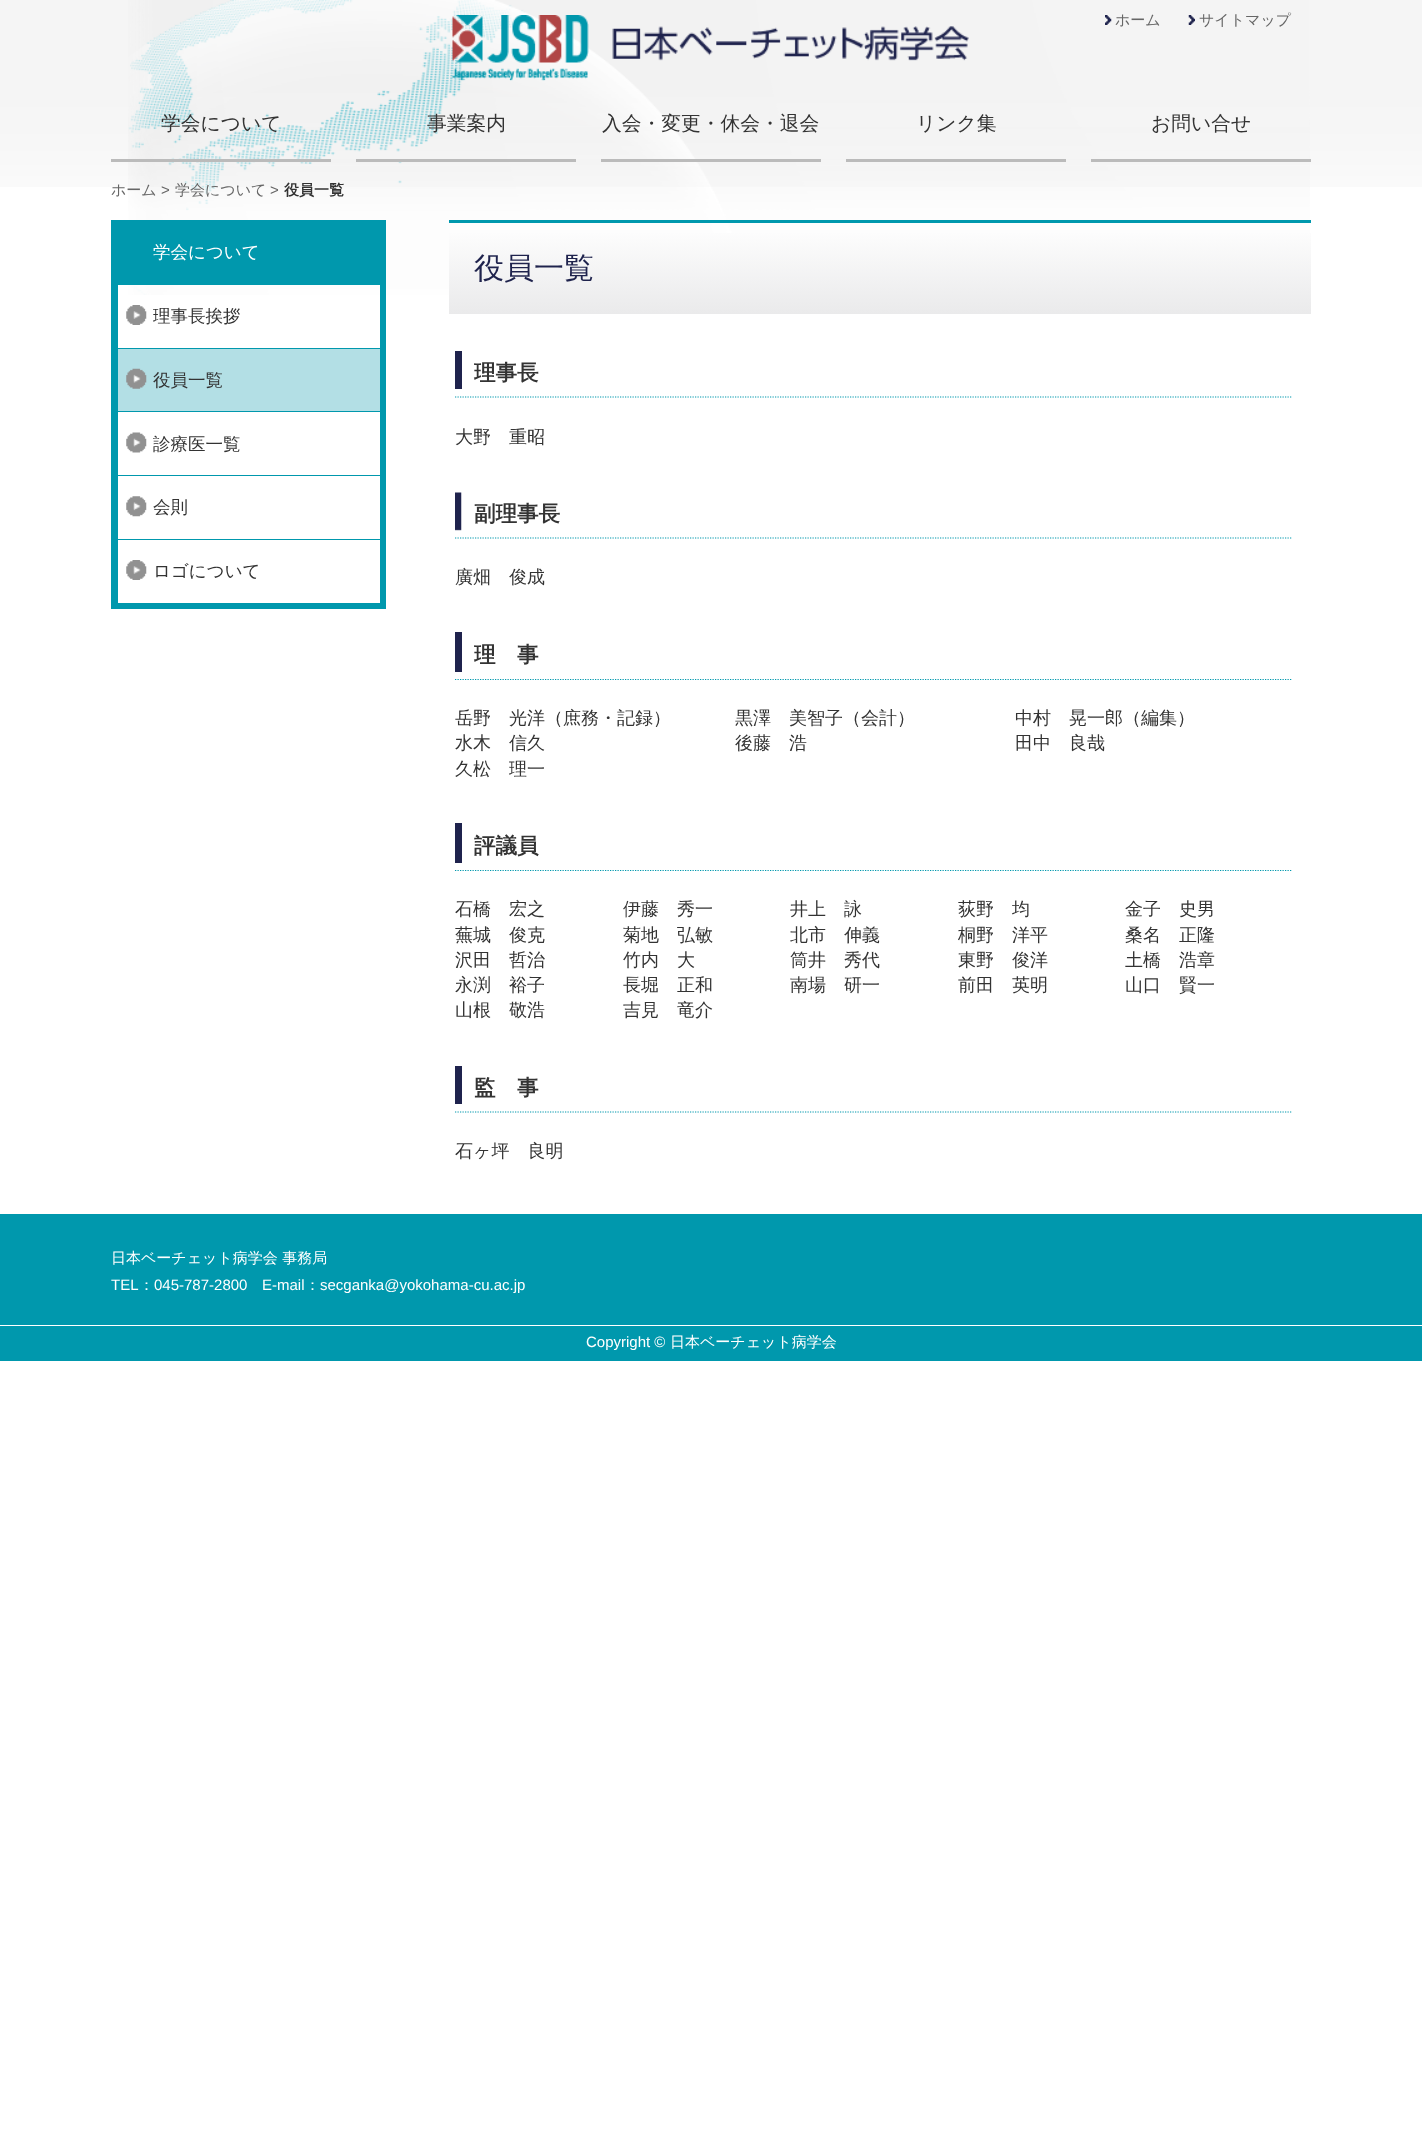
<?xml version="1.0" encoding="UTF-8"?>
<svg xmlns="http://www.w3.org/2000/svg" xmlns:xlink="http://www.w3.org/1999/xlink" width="1422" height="2143">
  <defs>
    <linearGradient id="g1" gradientUnits="userSpaceOnUse" x1="880" y1="222" x2="880" y2="314"><stop offset="0" stop-color="#ffffff" /><stop offset="1" stop-color="#eaeaeb" /></linearGradient>
  </defs>
  <rect width="100%" height="100%" fill="#ffffff" />
  <image x="0" y="0" width="1422" height="187" xlink:href="image1.png" />
  <image x="128" y="0" width="1182" height="295" xlink:href="image2.png" />
  <image x="452" y="15" width="517" height="66" xlink:href="image3.png" />
  <image x="1105" y="15" width="7" height="10" xlink:href="image4.png" />
  <image x="1188" y="15" width="7" height="10" xlink:href="image5.png" />
  <rect x="111" y="159" width="220" height="3" fill="#bbbbbb" />
  <rect x="356" y="159" width="220" height="3" fill="#bbbbbb" />
  <rect x="601" y="159" width="220" height="3" fill="#bbbbbb" />
  <rect x="846" y="159" width="220" height="3" fill="#bbbbbb" />
  <rect x="1091" y="159" width="220" height="3" fill="#bbbbbb" />
  <rect x="111" y="220" width="275" height="65" fill="#0098ad" />
  <rect x="380" y="284" width="6" height="64" fill="#0098ad" />
  <rect x="111" y="284" width="7" height="64" fill="#0098ad" />
  <image x="126" y="305" width="21" height="20" xlink:href="image6.png" />
  <rect x="111" y="348" width="275" height="1" fill="#0098ad" />
  <rect x="380" y="348" width="6" height="63" fill="#0098ad" />
  <rect x="111" y="348" width="7" height="63" fill="#0098ad" />
  <rect x="118" y="349" width="262" height="62" fill="#b3dfe5" />
  <image x="126" y="368" width="21" height="21" xlink:href="image7.png" />
  <rect x="111" y="411" width="275" height="1" fill="#0098ad" />
  <rect x="380" y="411" width="6" height="64" fill="#0098ad" />
  <rect x="111" y="411" width="7" height="64" fill="#0098ad" />
  <image x="126" y="432" width="21" height="21" xlink:href="image8.png" />
  <rect x="111" y="475" width="275" height="1" fill="#0098ad" />
  <rect x="380" y="475" width="6" height="64" fill="#0098ad" />
  <rect x="111" y="475" width="7" height="64" fill="#0098ad" />
  <image x="126" y="496" width="21" height="21" xlink:href="image9.png" />
  <rect x="111" y="539" width="275" height="1" fill="#0098ad" />
  <rect x="380" y="539" width="6" height="70" fill="#0098ad" />
  <rect x="111" y="603" width="275" height="6" fill="#0098ad" />
  <rect x="111" y="539" width="7" height="70" fill="#0098ad" />
  <image x="126" y="560" width="21" height="20" xlink:href="image6.png" />
  <rect x="449" y="233" width="862" height="81" fill="url(#g1)" />
  <rect x="449" y="220" width="862" height="3" fill="#0098ad" />
  <rect x="455" y="351" width="7" height="38" fill="#1f234d" />
  <path d="M 455 397 h 837.5" fill="none" stroke="#0098ad" stroke-width="1.2" stroke-dasharray="1.25 1.25" />
  <image x="455" y="492" width="7" height="39" xlink:href="image10.png" />
  <path d="M 455 538 h 837.5" fill="none" stroke="#0098ad" stroke-width="1.2" stroke-dasharray="1.25 1.25" />
  <rect x="455" y="632" width="7" height="40" fill="#1f234d" />
  <path d="M 455 679.5 h 837.5" fill="none" stroke="#0098ad" stroke-width="1.2" stroke-dasharray="1.25 1.25" />
  <rect x="455" y="823" width="7" height="40" fill="#1f234d" />
  <path d="M 455 870.5 h 837.5" fill="none" stroke="#0098ad" stroke-width="1.2" stroke-dasharray="1.25 1.25" />
  <rect x="455" y="1066" width="7" height="38" fill="#1f234d" />
  <path d="M 455 1112 h 837.5" fill="none" stroke="#0098ad" stroke-width="1.2" stroke-dasharray="1.25 1.25" />
  <rect y="1214" width="1422" height="147" fill="#0098ad" />
  <rect y="1325" width="1422" height="1" fill="#ffffff" />
  <text x="1115" y="25" style="font-family: WenQuanYi Zen Hei; font-size: 15px; font-weight: 500; fill: #666666">ホーム</text>
  <text x="1199" y="25" style="font-family: WenQuanYi Zen Hei; font-size: 15px; font-weight: 500; fill: #666666">サイトマップ</text>
  <text x="161" y="130" style="font-family: WenQuanYi Zen Hei; font-size: 19.75px; font-weight: 500; fill: #333333">学会について</text>
  <text x="427" y="130" style="font-family: WenQuanYi Zen Hei; font-size: 19.75px; font-weight: 500; fill: #333333">事業案内</text>
  <text x="602" y="130" style="font-family: WenQuanYi Zen Hei; font-size: 19.75px; font-weight: 500; fill: #333333">入会・変更・休会・退会</text>
  <text x="916" y="130" style="font-family: WenQuanYi Zen Hei; font-size: 19.75px; font-weight: 500; fill: #333333">リンク集</text>
  <text x="1151" y="130" style="font-family: WenQuanYi Zen Hei; font-size: 19.75px; font-weight: 500; fill: #333333">お問い合せ</text>
  <text x="111" y="195" style="font-family: WenQuanYi Zen Hei; font-size: 15px; font-weight: 500; fill: #666666">ホーム</text>
  <text x="161" y="195" style="font-family: Liberation Sans; font-size: 15px; fill: #666666">&gt;</text>
  <text x="175" y="195" style="font-family: WenQuanYi Zen Hei; font-size: 15px; font-weight: 500; fill: #666666">学会について</text>
  <text x="270" y="195" style="font-family: Liberation Sans; font-size: 15px; fill: #666666">&gt;</text>
  <text x="284" y="195" style="font-family: WenQuanYi Zen Hei; font-size: 15px; font-weight: bold; fill: #333333">役員一覧</text>
  <text x="153" y="258" style="font-family: WenQuanYi Zen Hei; font-size: 17.5px; font-weight: 500; fill: #ffffff">学会について</text>
  <text x="153" y="322" style="font-family: WenQuanYi Zen Hei; font-size: 17.5px; font-weight: 500; fill: #333333">理事長挨拶</text>
  <text x="153" y="386" style="font-family: WenQuanYi Zen Hei; font-size: 17.5px; font-weight: 500; fill: #333333">役員一覧</text>
  <text x="153" y="450" style="font-family: WenQuanYi Zen Hei; font-size: 17.5px; font-weight: 500; fill: #333333">診療医一覧</text>
  <text x="153" y="513" style="font-family: WenQuanYi Zen Hei; font-size: 17.5px; font-weight: 500; fill: #333333">会則</text>
  <text x="153" y="577" style="font-family: WenQuanYi Zen Hei; font-size: 17.5px; font-weight: 500; fill: #333333">ロゴについて</text>
  <text x="474" y="278" style="font-family: WenQuanYi Zen Hei; font-size: 30px; font-weight: 500; fill: #1f234d">役員一覧</text>
  <text x="474" y="380" style="font-family: WenQuanYi Zen Hei; font-size: 21.5px; font-weight: bold; fill: #333333">理事長</text>
  <text x="455" y="443" style="font-family: WenQuanYi Zen Hei; font-size: 18px; font-weight: 500; fill: #333333">大野　重昭</text>
  <text x="474" y="521" style="font-family: WenQuanYi Zen Hei; font-size: 21.5px; font-weight: bold; fill: #333333">副理事長</text>
  <text x="455" y="583" style="font-family: WenQuanYi Zen Hei; font-size: 18px; font-weight: 500; fill: #333333">廣畑　俊成</text>
  <text x="474" y="662" style="font-family: WenQuanYi Zen Hei; font-size: 21.5px; font-weight: bold; fill: #333333">理　事</text>
  <text x="455" y="724" style="font-family: WenQuanYi Zen Hei; font-size: 18px; font-weight: 500; fill: #333333">岳野　光洋（庶務・記録）</text>
  <text x="735" y="724" style="font-family: WenQuanYi Zen Hei; font-size: 18px; font-weight: 500; fill: #333333">黒澤　美智子（会計）</text>
  <text x="1015" y="724" style="font-family: WenQuanYi Zen Hei; font-size: 18px; font-weight: 500; fill: #333333">中村　晃一郎（編集）</text>
  <text x="455" y="749" style="font-family: WenQuanYi Zen Hei; font-size: 18px; font-weight: 500; fill: #333333">水木　信久</text>
  <text x="735" y="749" style="font-family: WenQuanYi Zen Hei; font-size: 18px; font-weight: 500; fill: #333333">後藤　浩</text>
  <text x="1015" y="749" style="font-family: WenQuanYi Zen Hei; font-size: 18px; font-weight: 500; fill: #333333">田中　良哉</text>
  <text x="455" y="775" style="font-family: WenQuanYi Zen Hei; font-size: 18px; font-weight: 500; fill: #333333">久松　理一</text>
  <text x="474" y="853" style="font-family: WenQuanYi Zen Hei; font-size: 21.5px; font-weight: bold; fill: #333333">評議員</text>
  <text x="455" y="915" style="font-family: WenQuanYi Zen Hei; font-size: 18px; font-weight: 500; fill: #333333">石橋　宏之</text>
  <text x="623" y="915" style="font-family: WenQuanYi Zen Hei; font-size: 18px; font-weight: 500; fill: #333333">伊藤　秀一</text>
  <text x="790" y="915" style="font-family: WenQuanYi Zen Hei; font-size: 18px; font-weight: 500; fill: #333333">井上　詠</text>
  <text x="958" y="915" style="font-family: WenQuanYi Zen Hei; font-size: 18px; font-weight: 500; fill: #333333">荻野　均</text>
  <text x="1125" y="915" style="font-family: WenQuanYi Zen Hei; font-size: 18px; font-weight: 500; fill: #333333">金子　史男</text>
  <text x="455" y="941" style="font-family: WenQuanYi Zen Hei; font-size: 18px; font-weight: 500; fill: #333333">蕪城　俊克</text>
  <text x="623" y="941" style="font-family: WenQuanYi Zen Hei; font-size: 18px; font-weight: 500; fill: #333333">菊地　弘敏</text>
  <text x="790" y="941" style="font-family: WenQuanYi Zen Hei; font-size: 18px; font-weight: 500; fill: #333333">北市　伸義</text>
  <text x="958" y="941" style="font-family: WenQuanYi Zen Hei; font-size: 18px; font-weight: 500; fill: #333333">桐野　洋平</text>
  <text x="1125" y="941" style="font-family: WenQuanYi Zen Hei; font-size: 18px; font-weight: 500; fill: #333333">桑名　正隆</text>
  <text x="455" y="966" style="font-family: WenQuanYi Zen Hei; font-size: 18px; font-weight: 500; fill: #333333">沢田　哲治</text>
  <text x="623" y="966" style="font-family: WenQuanYi Zen Hei; font-size: 18px; font-weight: 500; fill: #333333">竹内　大</text>
  <text x="790" y="966" style="font-family: WenQuanYi Zen Hei; font-size: 18px; font-weight: 500; fill: #333333">筒井　秀代</text>
  <text x="958" y="966" style="font-family: WenQuanYi Zen Hei; font-size: 18px; font-weight: 500; fill: #333333">東野　俊洋</text>
  <text x="1125" y="966" style="font-family: WenQuanYi Zen Hei; font-size: 18px; font-weight: 500; fill: #333333">土橋　浩章</text>
  <text x="455" y="991" style="font-family: WenQuanYi Zen Hei; font-size: 18px; font-weight: 500; fill: #333333">永渕　裕子</text>
  <text x="623" y="991" style="font-family: WenQuanYi Zen Hei; font-size: 18px; font-weight: 500; fill: #333333">長堀　正和</text>
  <text x="790" y="991" style="font-family: WenQuanYi Zen Hei; font-size: 18px; font-weight: 500; fill: #333333">南場　研一</text>
  <text x="958" y="991" style="font-family: WenQuanYi Zen Hei; font-size: 18px; font-weight: 500; fill: #333333">前田　英明</text>
  <text x="1125" y="991" style="font-family: WenQuanYi Zen Hei; font-size: 18px; font-weight: 500; fill: #333333">山口　賢一</text>
  <text x="455" y="1016" style="font-family: WenQuanYi Zen Hei; font-size: 18px; font-weight: 500; fill: #333333">山根　敬浩</text>
  <text x="623" y="1016" style="font-family: WenQuanYi Zen Hei; font-size: 18px; font-weight: 500; fill: #333333">吉見　竜介</text>
  <text x="474" y="1095" style="font-family: WenQuanYi Zen Hei; font-size: 21.5px; font-weight: bold; fill: #333333">監　事</text>
  <text x="455" y="1157" style="font-family: WenQuanYi Zen Hei; font-size: 18px; font-weight: 500; fill: #333333">石ヶ坪　良明</text>
  <text x="111" y="1263" style="font-family: WenQuanYi Zen Hei; font-size: 15px; font-weight: 500; fill: #ffffff">日本ベーチェット病学会 事務局</text>
  <text x="111" y="1290" style="font-family: Liberation Sans; font-size: 15px; fill: #ffffff">TEL</text>
  <text x="139" y="1290" style="font-family: WenQuanYi Zen Hei; font-size: 15px; font-weight: 500; fill: #ffffff">：</text>
  <text x="154" y="1290" style="font-family: Liberation Sans; font-size: 15px; fill: #ffffff">045-787-2800</text>
  <text x="262" y="1290" style="font-family: Liberation Sans; font-size: 15px; fill: #ffffff">E-mail</text>
  <text x="305" y="1290" style="font-family: WenQuanYi Zen Hei; font-size: 15px; font-weight: 500; fill: #ffffff">：</text>
  <text x="320" y="1290" style="font-family: Liberation Sans; font-size: 15px; fill: #ffffff">secganka@yokohama-cu.ac.jp</text>
  <text x="586" y="1347" style="font-family: Liberation Sans; font-size: 15px; fill: #ffffff">Copyright ©</text>
  <text x="670" y="1347" style="font-family: WenQuanYi Zen Hei; font-size: 15px; font-weight: 500; fill: #ffffff">日本ベーチェット病学会</text>
</svg>
